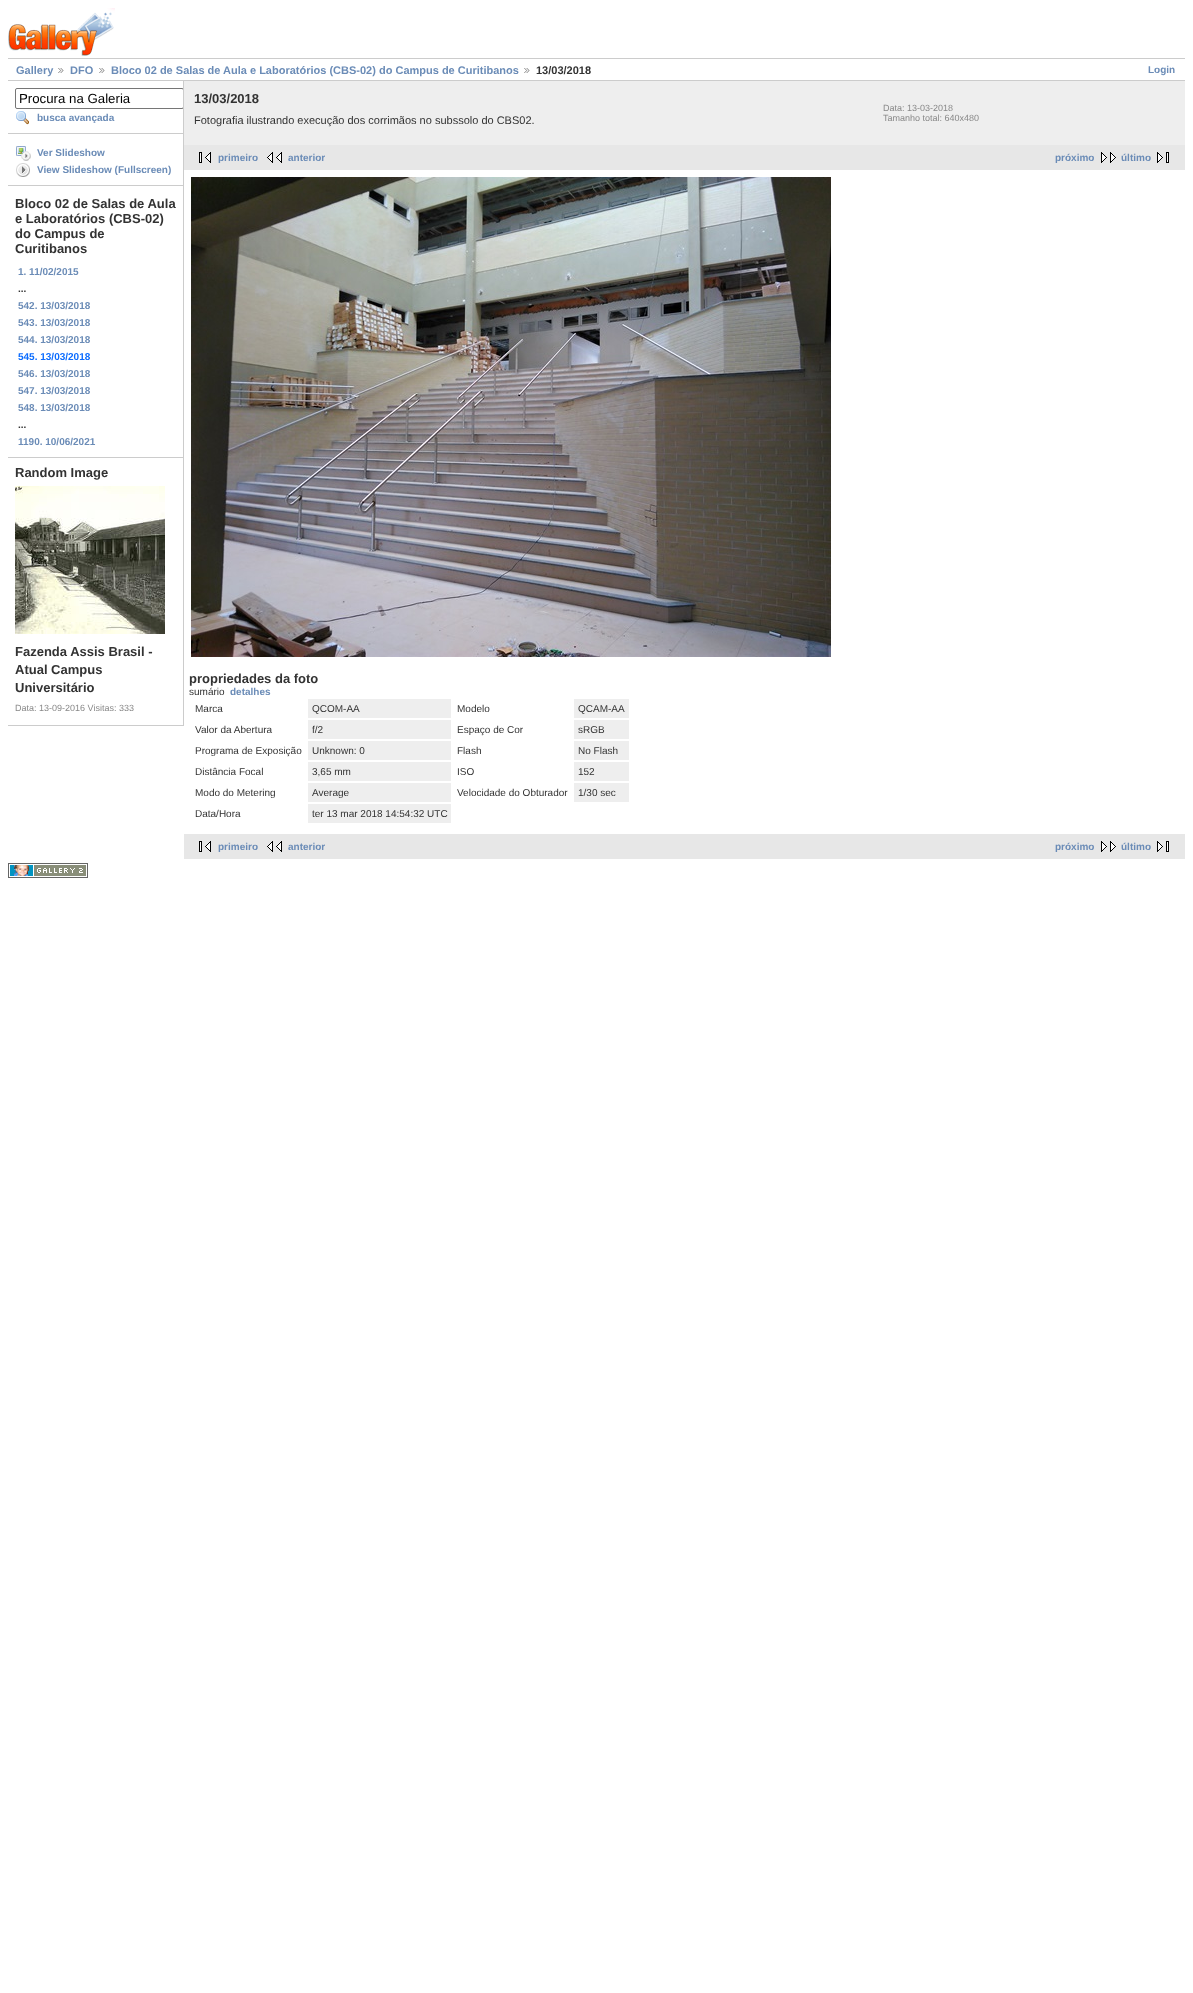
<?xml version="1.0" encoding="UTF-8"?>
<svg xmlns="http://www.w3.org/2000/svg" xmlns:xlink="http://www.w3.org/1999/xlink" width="1193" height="1993">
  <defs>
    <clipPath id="clip1"><rect x="8" y="81" width="175" height="645" /></clipPath>
  </defs>
  <rect width="100%" height="100%" fill="#ffffff" />
  <image x="8" y="8" width="107" height="48" xlink:href="image1.png" />
  <rect x="8" y="58" width="1177" height="1" fill="#cccccc" />
  <rect x="8" y="80" width="1177" height="1" fill="#cccccc" />
  <image x="58" y="68" width="6" height="5" xlink:href="image2.png" />
  <image x="99" y="68" width="6" height="5" xlink:href="image2.png" />
  <image x="524" y="68" width="6" height="5" xlink:href="image2.png" />
  <rect x="183" y="81" width="1" height="645" fill="#cccccc" />
  <rect x="8" y="133" width="175" height="1" fill="#cccccc" />
  <g clip-path="url(#clip1)">
    <rect x="15.5" y="88.5" width="168" height="20" rx="1.5" fill="none" stroke="#767676" />
  </g>
  <image x="16" y="111" width="13" height="14" xlink:href="image3.png" />
  <rect x="8" y="185" width="175" height="1" fill="#cccccc" />
  <image x="16" y="146" width="15" height="15" xlink:href="image4.png" />
  <image x="16" y="163" width="14" height="14" xlink:href="image5.png" />
  <rect x="8" y="457" width="175" height="1" fill="#cccccc" />
  <rect x="8" y="725" width="175" height="1" fill="#cccccc" />
  <image x="15" y="486" width="150" height="148" xlink:href="image6.png" />
  <rect x="184" y="81" width="1001" height="64" fill="#eeeeee" />
  <rect x="184" y="145" width="1001" height="25" fill="#e7e7e7" />
  <image x="199" y="152" width="12" height="11" xlink:href="image7.png" />
  <image x="267" y="152" width="15" height="11" xlink:href="image8.png" />
  <image x="1101" y="152" width="15" height="11" xlink:href="image9.png" />
  <image x="1157" y="152" width="12" height="11" xlink:href="image10.png" />
  <image x="191" y="177" width="640" height="480" xlink:href="image11.png" />
  <rect x="308" y="699" width="143" height="19" fill="#eeeeee" />
  <rect x="574" y="699" width="55" height="19" fill="#eeeeee" />
  <rect x="308" y="720" width="143" height="19" fill="#eeeeee" />
  <rect x="574" y="720" width="55" height="19" fill="#eeeeee" />
  <rect x="308" y="741" width="143" height="19" fill="#eeeeee" />
  <rect x="574" y="741" width="55" height="19" fill="#eeeeee" />
  <rect x="308" y="762" width="143" height="19" fill="#eeeeee" />
  <rect x="574" y="762" width="55" height="19" fill="#eeeeee" />
  <rect x="308" y="783" width="143" height="19" fill="#eeeeee" />
  <rect x="574" y="783" width="55" height="19" fill="#eeeeee" />
  <rect x="308" y="804" width="143" height="19" fill="#eeeeee" />
  <rect x="184" y="834" width="1001" height="25" fill="#e7e7e7" />
  <image x="199" y="841" width="12" height="11" xlink:href="image7.png" />
  <image x="267" y="841" width="15" height="11" xlink:href="image8.png" />
  <image x="1101" y="841" width="15" height="11" xlink:href="image9.png" />
  <image x="1157" y="841" width="12" height="11" xlink:href="image10.png" />
  <image x="8" y="863" width="80" height="15" xlink:href="image12.png" />
  <text x="16" y="74" style="font-family: Liberation Sans; font-size: 11px; font-weight: bold; fill: #6b8cb7">Gallery</text>
  <text x="70" y="74" style="font-family: Liberation Sans; font-size: 11px; font-weight: bold; fill: #6b8cb7">DFO</text>
  <text x="111" y="74" style="font-family: Liberation Sans; font-size: 11px; font-weight: bold; fill: #6b8cb7">Bloco 02 de Salas de Aula e Laboratórios (CBS-02) do Campus de Curitibanos</text>
  <text x="536" y="74" style="font-family: Liberation Sans; font-size: 11px; font-weight: bold; fill: #333333">13/03/2018</text>
  <text x="1148" y="73" style="font-family: Liberation Sans; font-size: 10px; font-weight: bold; fill: #6b8cb7">Login</text>
  <text x="19" y="103" style="font-family: Liberation Sans; font-size: 13.25px; fill: #000000">Procura na Galeria</text>
  <text x="37" y="121" style="font-family: Liberation Sans; font-size: 10px; font-weight: bold; fill: #6b8cb7">busca avançada</text>
  <text x="37" y="156" style="font-family: Liberation Sans; font-size: 10px; font-weight: bold; fill: #6b8cb7">Ver Slideshow</text>
  <text x="37" y="173" style="font-family: Liberation Sans; font-size: 10px; font-weight: bold; fill: #6b8cb7">View Slideshow (Fullscreen)</text>
  <text x="15" y="208" style="font-family: Liberation Sans; font-size: 13px; font-weight: bold; fill: #333333">Bloco 02 de Salas de Aula</text>
  <text x="15" y="223" style="font-family: Liberation Sans; font-size: 13px; font-weight: bold; fill: #333333">e Laboratórios (CBS-02)</text>
  <text x="15" y="238" style="font-family: Liberation Sans; font-size: 13px; font-weight: bold; fill: #333333">do Campus de</text>
  <text x="15" y="253" style="font-family: Liberation Sans; font-size: 13px; font-weight: bold; fill: #333333">Curitibanos</text>
  <text x="18" y="275" style="font-family: Liberation Sans; font-size: 10px; font-weight: bold; fill: #6b8cb7">1. 11/02/2015</text>
  <text x="18" y="292" style="font-family: Liberation Sans; font-size: 10px; font-weight: bold; fill: #333333">...</text>
  <text x="18" y="309" style="font-family: Liberation Sans; font-size: 10px; font-weight: bold; fill: #6b8cb7">542. 13/03/2018</text>
  <text x="18" y="326" style="font-family: Liberation Sans; font-size: 10px; font-weight: bold; fill: #6b8cb7">543. 13/03/2018</text>
  <text x="18" y="343" style="font-family: Liberation Sans; font-size: 10px; font-weight: bold; fill: #6b8cb7">544. 13/03/2018</text>
  <text x="18" y="360" style="font-family: Liberation Sans; font-size: 10px; font-weight: bold; fill: #0b6cff">545. 13/03/2018</text>
  <text x="18" y="377" style="font-family: Liberation Sans; font-size: 10px; font-weight: bold; fill: #6b8cb7">546. 13/03/2018</text>
  <text x="18" y="394" style="font-family: Liberation Sans; font-size: 10px; font-weight: bold; fill: #6b8cb7">547. 13/03/2018</text>
  <text x="18" y="411" style="font-family: Liberation Sans; font-size: 10px; font-weight: bold; fill: #6b8cb7">548. 13/03/2018</text>
  <text x="18" y="428" style="font-family: Liberation Sans; font-size: 10px; font-weight: bold; fill: #333333">...</text>
  <text x="18" y="445" style="font-family: Liberation Sans; font-size: 10px; font-weight: bold; fill: #6b8cb7">1190. 10/06/2021</text>
  <text x="15" y="477" style="font-family: Liberation Sans; font-size: 13px; font-weight: bold; fill: #333333">Random Image</text>
  <text x="15" y="656" style="font-family: Liberation Sans; font-size: 13px; font-weight: bold; fill: #333333">Fazenda Assis Brasil -</text>
  <text x="15" y="674" style="font-family: Liberation Sans; font-size: 13px; font-weight: bold; fill: #333333">Atual Campus</text>
  <text x="15" y="692" style="font-family: Liberation Sans; font-size: 13px; font-weight: bold; fill: #333333">Universitário</text>
  <text x="15" y="711" style="font-family: Liberation Sans; font-size: 9px; fill: #888888">Data: 13-09-2016 Visitas: 333</text>
  <text x="194" y="103" style="font-family: Liberation Sans; font-size: 13px; font-weight: bold; fill: #333333">13/03/2018</text>
  <text x="194" y="124" style="font-family: Liberation Sans; font-size: 11px; fill: #333333">Fotografia ilustrando execução dos corrimãos no subssolo do CBS02.</text>
  <text x="883" y="111" style="font-family: Liberation Sans; font-size: 9px; fill: #888888">Data: 13-03-2018</text>
  <text x="883" y="121" style="font-family: Liberation Sans; font-size: 9px; fill: #888888">Tamanho total: 640x480</text>
  <text x="218" y="161" style="font-family: Liberation Sans; font-size: 10px; font-weight: bold; fill: #6b8cb7">primeiro</text>
  <text x="288" y="161" style="font-family: Liberation Sans; font-size: 10px; font-weight: bold; fill: #6b8cb7">anterior</text>
  <text x="1055" y="161" style="font-family: Liberation Sans; font-size: 10px; font-weight: bold; fill: #6b8cb7">próximo</text>
  <text x="1121" y="161" style="font-family: Liberation Sans; font-size: 10px; font-weight: bold; fill: #6b8cb7">último</text>
  <text x="189" y="683" style="font-family: Liberation Sans; font-size: 13px; font-weight: bold; fill: #333333">propriedades da foto</text>
  <text x="189" y="695" style="font-family: Liberation Sans; font-size: 10px; fill: #333333">sumário</text>
  <text x="230" y="695" style="font-family: Liberation Sans; font-size: 10px; font-weight: bold; fill: #6b8cb7">detalhes</text>
  <text x="195" y="712" style="font-family: Liberation Sans; font-size: 10px; fill: #333333">Marca</text>
  <text x="312" y="712" style="font-family: Liberation Sans; font-size: 10px; fill: #333333">QCOM-AA</text>
  <text x="457" y="712" style="font-family: Liberation Sans; font-size: 10px; fill: #333333">Modelo</text>
  <text x="578" y="712" style="font-family: Liberation Sans; font-size: 10px; fill: #333333">QCAM-AA</text>
  <text x="195" y="733" style="font-family: Liberation Sans; font-size: 10px; fill: #333333">Valor da Abertura</text>
  <text x="312" y="733" style="font-family: Liberation Sans; font-size: 10px; fill: #333333">f/2</text>
  <text x="457" y="733" style="font-family: Liberation Sans; font-size: 10px; fill: #333333">Espaço de Cor</text>
  <text x="578" y="733" style="font-family: Liberation Sans; font-size: 10px; fill: #333333">sRGB</text>
  <text x="195" y="754" style="font-family: Liberation Sans; font-size: 10px; fill: #333333">Programa de Exposição</text>
  <text x="312" y="754" style="font-family: Liberation Sans; font-size: 10px; fill: #333333">Unknown: 0</text>
  <text x="457" y="754" style="font-family: Liberation Sans; font-size: 10px; fill: #333333">Flash</text>
  <text x="578" y="754" style="font-family: Liberation Sans; font-size: 10px; fill: #333333">No Flash</text>
  <text x="195" y="775" style="font-family: Liberation Sans; font-size: 10px; fill: #333333">Distância Focal</text>
  <text x="312" y="775" style="font-family: Liberation Sans; font-size: 10px; fill: #333333">3,65 mm</text>
  <text x="457" y="775" style="font-family: Liberation Sans; font-size: 10px; fill: #333333">ISO</text>
  <text x="578" y="775" style="font-family: Liberation Sans; font-size: 10px; fill: #333333">152</text>
  <text x="195" y="796" style="font-family: Liberation Sans; font-size: 10px; fill: #333333">Modo do Metering</text>
  <text x="312" y="796" style="font-family: Liberation Sans; font-size: 10px; fill: #333333">Average</text>
  <text x="457" y="796" style="font-family: Liberation Sans; font-size: 10px; fill: #333333">Velocidade do Obturador</text>
  <text x="578" y="796" style="font-family: Liberation Sans; font-size: 10px; fill: #333333">1/30 sec</text>
  <text x="195" y="817" style="font-family: Liberation Sans; font-size: 10px; fill: #333333">Data/Hora</text>
  <text x="312" y="817" style="font-family: Liberation Sans; font-size: 10px; fill: #333333">ter 13 mar 2018 14:54:32 UTC</text>
  <text x="218" y="850" style="font-family: Liberation Sans; font-size: 10px; font-weight: bold; fill: #6b8cb7">primeiro</text>
  <text x="288" y="850" style="font-family: Liberation Sans; font-size: 10px; font-weight: bold; fill: #6b8cb7">anterior</text>
  <text x="1055" y="850" style="font-family: Liberation Sans; font-size: 10px; font-weight: bold; fill: #6b8cb7">próximo</text>
  <text x="1121" y="850" style="font-family: Liberation Sans; font-size: 10px; font-weight: bold; fill: #6b8cb7">último</text>
</svg>
